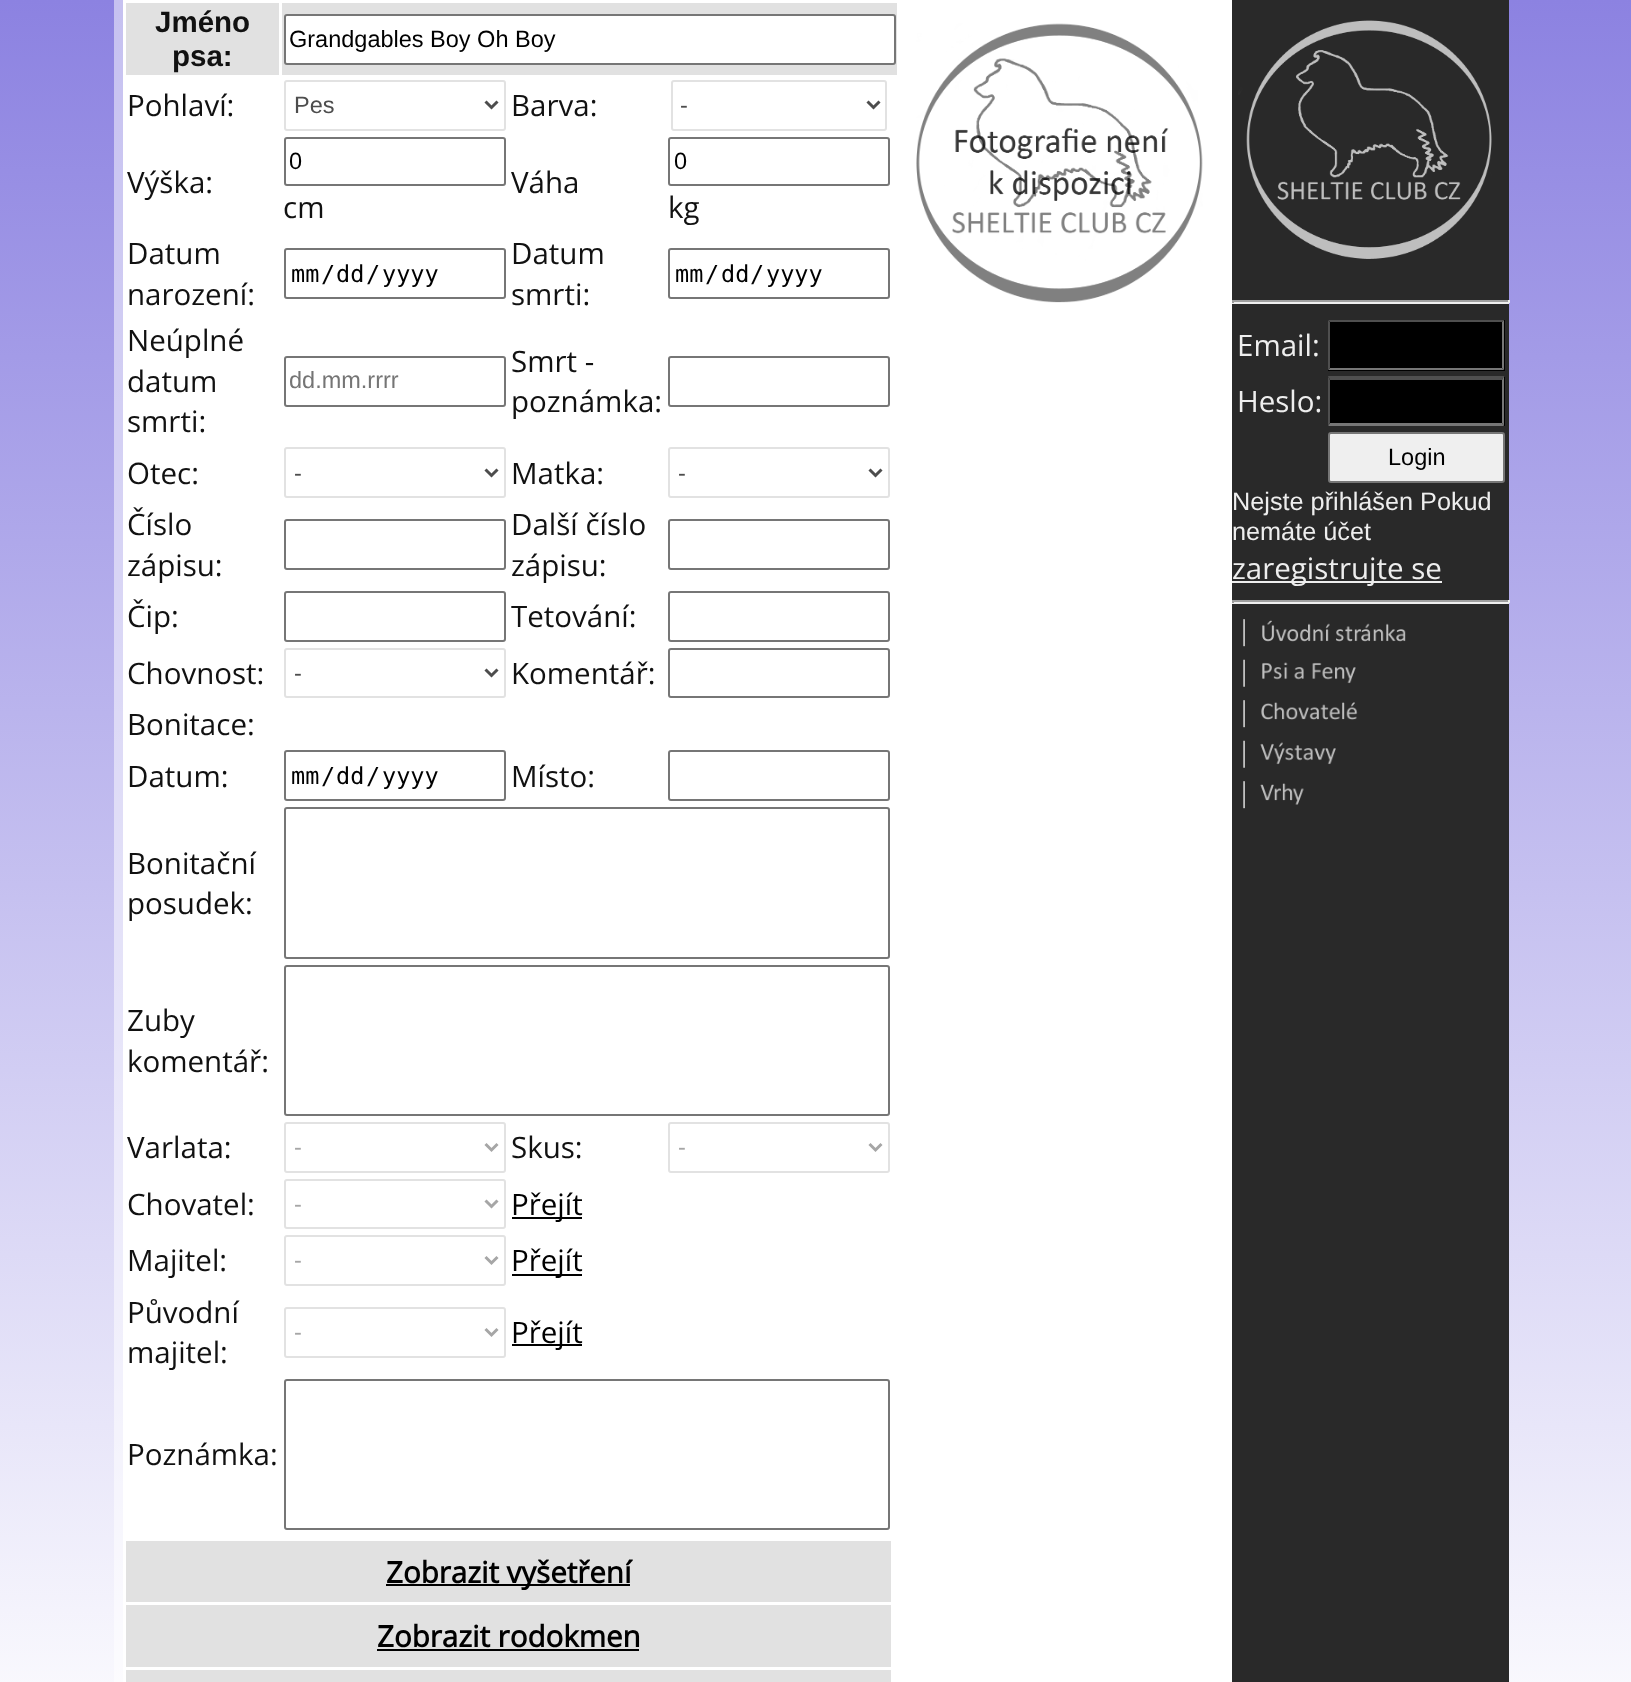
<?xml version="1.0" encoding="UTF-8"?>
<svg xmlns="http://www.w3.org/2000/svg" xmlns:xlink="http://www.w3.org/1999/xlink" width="1631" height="1682">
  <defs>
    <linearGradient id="g1" gradientUnits="userSpaceOnUse" x1="816" y1="0" x2="816" y2="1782"><stop offset="0" stop-color="#8c82e1" /><stop offset="1" stop-color="#ffffff" /></linearGradient>
  </defs>
  <rect width="100%" height="100%" fill="#ffffff" />
  <rect width="1631" height="1682" fill="url(#g1)" />
  <path d="M 114 -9 v 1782 h 9 v -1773 h 1100 v -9 z" fill="#ffffff" fill-opacity="0.5" />
  <rect x="123" width="1109" height="1682" fill="#ffffff" />
  <rect x="126" y="3" width="153" height="72" fill="#e1e1e1" />
  <rect x="282" y="3" width="615" height="72" fill="#e1e1e1" />
  <rect x="285" y="15" width="610" height="49" rx="2" fill="#ffffff" stroke="#767676" stroke-width="2" />
  <rect x="285" y="81" width="220" height="49" rx="2" fill="none" stroke="#e2e2e2" stroke-width="2" />
  <path d="M 485.5 101.5 l 6 6 l 6 -6" fill="none" stroke="#4d4d4d" stroke-width="3" />
  <rect x="672" y="81" width="214" height="49" rx="2" fill="none" stroke="#e2e2e2" stroke-width="2" />
  <path d="M 867.5 101.5 l 6 6 l 6 -6" fill="none" stroke="#4d4d4d" stroke-width="3" />
  <rect x="285" y="138" width="220" height="47" rx="2" fill="none" stroke="#767676" stroke-width="2" />
  <rect x="669" y="138" width="220" height="47" rx="2" fill="none" stroke="#767676" stroke-width="2" />
  <rect x="285" y="249" width="220" height="49" rx="2" fill="none" stroke="#767676" stroke-width="2" />
  <rect x="669" y="249" width="220" height="49" rx="2" fill="none" stroke="#767676" stroke-width="2" />
  <rect x="285" y="357" width="220" height="49" rx="2" fill="none" stroke="#767676" stroke-width="2" />
  <rect x="669" y="357" width="220" height="49" rx="2" fill="none" stroke="#767676" stroke-width="2" />
  <rect x="285" y="448" width="220" height="49" rx="2" fill="none" stroke="#e2e2e2" stroke-width="2" />
  <path d="M 485.5 469.5 l 6 6 l 6 -6" fill="none" stroke="#4d4d4d" stroke-width="3" />
  <rect x="669" y="448" width="220" height="49" rx="2" fill="none" stroke="#e2e2e2" stroke-width="2" />
  <path d="M 869.5 469.5 l 6 6 l 6 -6" fill="none" stroke="#4d4d4d" stroke-width="3" />
  <rect x="285" y="520" width="220" height="49" rx="2" fill="none" stroke="#767676" stroke-width="2" />
  <rect x="669" y="520" width="220" height="49" rx="2" fill="none" stroke="#767676" stroke-width="2" />
  <rect x="285" y="592" width="220" height="49" rx="2" fill="none" stroke="#767676" stroke-width="2" />
  <rect x="669" y="592" width="220" height="49" rx="2" fill="none" stroke="#767676" stroke-width="2" />
  <rect x="285" y="649" width="220" height="48" rx="2" fill="none" stroke="#e2e2e2" stroke-width="2" />
  <path d="M 485.5 669.5 l 6 6 l 6 -6" fill="none" stroke="#4d4d4d" stroke-width="3" />
  <rect x="669" y="649" width="220" height="48" rx="2" fill="none" stroke="#767676" stroke-width="2" />
  <rect x="285" y="751" width="220" height="49" rx="2" fill="none" stroke="#767676" stroke-width="2" />
  <rect x="669" y="751" width="220" height="49" rx="2" fill="none" stroke="#767676" stroke-width="2" />
  <rect x="285" y="808" width="604" height="150" rx="2" fill="none" stroke="#767676" stroke-width="2" />
  <rect x="285" y="966" width="604" height="149" rx="2" fill="none" stroke="#767676" stroke-width="2" />
  <rect x="285" y="1123" width="220" height="49" rx="2" fill="none" stroke="#e2e2e2" stroke-width="2" />
  <path d="M 485.5 1144 l 6 6 l 6 -6" fill="none" stroke="#a6a6a6" stroke-width="3" />
  <rect x="669" y="1123" width="220" height="49" rx="2" fill="none" stroke="#e2e2e2" stroke-width="2" />
  <path d="M 869.5 1144 l 6 6 l 6 -6" fill="none" stroke="#a6a6a6" stroke-width="3" />
  <rect x="285" y="1180" width="220" height="48" rx="2" fill="none" stroke="#e2e2e2" stroke-width="2" />
  <path d="M 485.5 1200.5 l 6 6 l 6 -6" fill="none" stroke="#a6a6a6" stroke-width="3" />
  <rect x="512" y="1217" width="70" height="2" fill="#000000" />
  <rect x="285" y="1236" width="220" height="49" rx="2" fill="none" stroke="#e2e2e2" stroke-width="2" />
  <path d="M 485.5 1257 l 6 6 l 6 -6" fill="none" stroke="#a6a6a6" stroke-width="3" />
  <rect x="512" y="1274" width="70" height="2" fill="#000000" />
  <rect x="285" y="1308" width="220" height="49" rx="2" fill="none" stroke="#e2e2e2" stroke-width="2" />
  <path d="M 485.5 1329 l 6 6 l 6 -6" fill="none" stroke="#a6a6a6" stroke-width="3" />
  <rect x="512" y="1344" width="70" height="2" fill="#000000" />
  <rect x="285" y="1380" width="604" height="149" rx="2" fill="none" stroke="#767676" stroke-width="2" />
  <rect x="126" y="1541" width="765" height="61" fill="#e1e1e1" />
  <rect x="386" y="1584" width="244" height="2" fill="#000000" />
  <rect x="126" y="1605" width="765" height="62" fill="#e1e1e1" />
  <rect x="377" y="1649" width="262" height="2" fill="#000000" />
  <rect x="126" y="1670" width="765" height="12" fill="#e1e1e1" />
  <image x="916" y="23" width="287" height="280" xlink:href="image1.png" />
  <rect x="1232" width="277" height="1682" fill="#292929" />
  <image x="1238" y="20" width="254" height="239" xlink:href="image2.png" />
  <rect x="1232" y="300" width="277" height="2" fill="#9f9f9f" />
  <rect x="1508" y="300" width="2" height="3" fill="#eeeeee" />
  <rect x="1232" y="302" width="277" height="2" fill="#eeeeee" />
  <rect x="1232" y="300" width="2" height="3" fill="#9f9f9f" />
  <rect x="1328" y="320" width="177" height="51" fill="#000000" />
  <path d="M 1328 320 h 176 l -2 2 h -172 z" fill="#4f4f4f" />
  <path d="M 1504 320 v 50 l -2 -2 v -46 z" fill="#767676" />
  <path d="M 1504 370 h -176 l 2 -2 h 172 z" fill="#767676" />
  <path d="M 1328 370 v -50 l 2 2 v 46 z" fill="#4f4f4f" />
  <rect x="1328" y="377" width="177" height="49" fill="#000000" />
  <path d="M 1328 376 h 176 l -2 4 h -172 z" fill="#4f4f4f" />
  <path d="M 1504 376 v 50 l -2 -3 v -43 z" fill="#767676" />
  <path d="M 1504 426 h -176 l 2 -3 h 172 z" fill="#767676" />
  <path d="M 1328 426 v -50 l 2 4 v 43 z" fill="#4f4f4f" />
  <rect x="1329" y="433" width="175" height="49" rx="2" fill="#efefef" stroke="#767676" stroke-width="2" />
  <rect x="1232" y="581" width="210" height="2" fill="#eeeeee" />
  <rect x="1232" y="600" width="277" height="2" fill="#9f9f9f" />
  <rect x="1508" y="600" width="2" height="3" fill="#eeeeee" />
  <rect x="1232" y="602" width="277" height="2" fill="#eeeeee" />
  <rect x="1232" y="600" width="2" height="3" fill="#9f9f9f" />
  <image x="1243" y="619" width="163" height="28" xlink:href="image3.png" />
  <image x="1243" y="659" width="113" height="28" xlink:href="image4.png" />
  <image x="1243" y="700" width="115" height="28" xlink:href="image5.png" />
  <image x="1243" y="740" width="93" height="28" xlink:href="image6.png" />
  <image x="1243" y="781" width="61" height="28" xlink:href="image7.png" />
  <text x="155" y="32" style="font-family: Liberation Sans; font-size: 29.5px; font-weight: bold; fill: #111111">Jméno</text>
  <text x="172" y="66" style="font-family: Liberation Sans; font-size: 29.5px; font-weight: bold; fill: #111111">psa:</text>
  <text x="289" y="47" style="font-family: Liberation Sans; font-size: 23.5px; fill: #000000">Grandgables Boy Oh Boy</text>
  <text x="127" y="116" style="font-family: Open Sans; font-size: 29.5px; fill: #111111">Pohlaví:</text>
  <text x="294" y="113" style="font-family: Liberation Sans; font-size: 23.5px; fill: #4d4d4d">Pes</text>
  <text x="511" y="116" style="font-family: Open Sans; font-size: 29.5px; fill: #111111">Barva:</text>
  <text x="680" y="113" style="font-family: Liberation Sans; font-size: 23.5px; fill: #4d4d4d">-</text>
  <text x="127" y="193" style="font-family: Open Sans; font-size: 29.5px; fill: #111111">Výška:</text>
  <text x="289" y="169" style="font-family: Liberation Sans; font-size: 23.5px; fill: #000000">0</text>
  <text x="283" y="218" style="font-family: Open Sans; font-size: 29.5px; fill: #111111">cm</text>
  <text x="511" y="193" style="font-family: Open Sans; font-size: 29.5px; fill: #111111">Váha</text>
  <text x="674" y="169" style="font-family: Liberation Sans; font-size: 23.5px; fill: #000000">0</text>
  <text x="668" y="218" style="font-family: Open Sans; font-size: 29.5px; fill: #111111">kg</text>
  <text x="127" y="264" style="font-family: Open Sans; font-size: 29.5px; fill: #111111">Datum</text>
  <text x="127" y="305" style="font-family: Open Sans; font-size: 29.5px; fill: #111111">narození:</text>
  <text x="291" y="282" style="font-family: DejaVu Sans Mono; font-size: 23.5px; fill: #000000">mm</text>
  <text x="321" y="282" style="font-family: DejaVu Sans Mono; font-size: 23.5px; fill: #000000">/</text>
  <text x="336" y="282" style="font-family: DejaVu Sans Mono; font-size: 23.5px; fill: #000000">dd</text>
  <text x="366" y="282" style="font-family: DejaVu Sans Mono; font-size: 23.5px; fill: #000000">/</text>
  <text x="382" y="282" style="font-family: DejaVu Sans Mono; font-size: 23.5px; fill: #000000">yyyy</text>
  <text x="511" y="264" style="font-family: Open Sans; font-size: 29.5px; fill: #111111">Datum</text>
  <text x="511" y="305" style="font-family: Open Sans; font-size: 29.5px; fill: #111111">smrti:</text>
  <text x="675" y="282" style="font-family: DejaVu Sans Mono; font-size: 23.5px; fill: #000000">mm</text>
  <text x="705" y="282" style="font-family: DejaVu Sans Mono; font-size: 23.5px; fill: #000000">/</text>
  <text x="721" y="282" style="font-family: DejaVu Sans Mono; font-size: 23.5px; fill: #000000">dd</text>
  <text x="750" y="282" style="font-family: DejaVu Sans Mono; font-size: 23.5px; fill: #000000">/</text>
  <text x="766" y="282" style="font-family: DejaVu Sans Mono; font-size: 23.5px; fill: #000000">yyyy</text>
  <text x="127" y="351" style="font-family: Open Sans; font-size: 29.5px; fill: #111111">Neúplné</text>
  <text x="127" y="392" style="font-family: Open Sans; font-size: 29.5px; fill: #111111">datum</text>
  <text x="127" y="432" style="font-family: Open Sans; font-size: 29.5px; fill: #111111">smrti:</text>
  <text x="289" y="388" style="font-family: Liberation Sans; font-size: 23.5px; fill: #757575">dd.mm.rrrr</text>
  <text x="511" y="372" style="font-family: Open Sans; font-size: 29.5px; fill: #111111">Smrt -</text>
  <text x="511" y="412" style="font-family: Open Sans; font-size: 29.5px; fill: #111111">poznámka:</text>
  <text x="127" y="484" style="font-family: Open Sans; font-size: 29.5px; fill: #111111">Otec:</text>
  <text x="294" y="481" style="font-family: Liberation Sans; font-size: 23.5px; fill: #4d4d4d">-</text>
  <text x="511" y="484" style="font-family: Open Sans; font-size: 29.5px; fill: #111111">Matka:</text>
  <text x="678" y="481" style="font-family: Liberation Sans; font-size: 23.5px; fill: #4d4d4d">-</text>
  <text x="127" y="535" style="font-family: Open Sans; font-size: 29.5px; fill: #111111">Číslo</text>
  <text x="127" y="576" style="font-family: Open Sans; font-size: 29.5px; fill: #111111">zápisu:</text>
  <text x="511" y="535" style="font-family: Open Sans; font-size: 29.5px; fill: #111111">Další číslo</text>
  <text x="511" y="576" style="font-family: Open Sans; font-size: 29.5px; fill: #111111">zápisu:</text>
  <text x="127" y="627" style="font-family: Open Sans; font-size: 29.5px; fill: #111111">Čip:</text>
  <text x="511" y="627" style="font-family: Open Sans; font-size: 29.5px; fill: #111111">Tetování:</text>
  <text x="127" y="684" style="font-family: Open Sans; font-size: 29.5px; fill: #111111">Chovnost:</text>
  <text x="294" y="681" style="font-family: Liberation Sans; font-size: 23.5px; fill: #4d4d4d">-</text>
  <text x="511" y="684" style="font-family: Open Sans; font-size: 29.5px; fill: #111111">Komentář:</text>
  <text x="127" y="735" style="font-family: Open Sans; font-size: 29.5px; fill: #111111">Bonitace:</text>
  <text x="127" y="787" style="font-family: Open Sans; font-size: 29.5px; fill: #111111">Datum:</text>
  <text x="291" y="784" style="font-family: DejaVu Sans Mono; font-size: 23.5px; fill: #000000">mm</text>
  <text x="321" y="784" style="font-family: DejaVu Sans Mono; font-size: 23.5px; fill: #000000">/</text>
  <text x="336" y="784" style="font-family: DejaVu Sans Mono; font-size: 23.5px; fill: #000000">dd</text>
  <text x="366" y="784" style="font-family: DejaVu Sans Mono; font-size: 23.5px; fill: #000000">/</text>
  <text x="382" y="784" style="font-family: DejaVu Sans Mono; font-size: 23.5px; fill: #000000">yyyy</text>
  <text x="511" y="787" style="font-family: Open Sans; font-size: 29.5px; fill: #111111">Místo:</text>
  <text x="127" y="874" style="font-family: Open Sans; font-size: 29.5px; fill: #111111">Bonitační</text>
  <text x="127" y="914" style="font-family: Open Sans; font-size: 29.5px; fill: #111111">posudek:</text>
  <text x="127" y="1031" style="font-family: Open Sans; font-size: 29.5px; fill: #111111">Zuby</text>
  <text x="127" y="1072" style="font-family: Open Sans; font-size: 29.5px; fill: #111111">komentář:</text>
  <text x="127" y="1158" style="font-family: Open Sans; font-size: 29.5px; fill: #111111">Varlata:</text>
  <text x="294" y="1155" style="font-family: Liberation Sans; font-size: 23.5px; fill: #a6a6a6">-</text>
  <text x="511" y="1158" style="font-family: Open Sans; font-size: 29.5px; fill: #111111">Skus:</text>
  <text x="678" y="1155" style="font-family: Liberation Sans; font-size: 23.5px; fill: #a6a6a6">-</text>
  <text x="127" y="1215" style="font-family: Open Sans; font-size: 29.5px; fill: #111111">Chovatel:</text>
  <text x="294" y="1212" style="font-family: Liberation Sans; font-size: 23.5px; fill: #a6a6a6">-</text>
  <text x="511" y="1215" style="font-family: Open Sans; font-size: 29.5px; fill: #000000">Přejít</text>
  <text x="127" y="1271" style="font-family: Open Sans; font-size: 29.5px; fill: #111111">Majitel:</text>
  <text x="294" y="1268" style="font-family: Liberation Sans; font-size: 23.5px; fill: #a6a6a6">-</text>
  <text x="511" y="1271" style="font-family: Open Sans; font-size: 29.5px; fill: #000000">Přejít</text>
  <text x="127" y="1323" style="font-family: Open Sans; font-size: 29.5px; fill: #111111">Původní</text>
  <text x="127" y="1363" style="font-family: Open Sans; font-size: 29.5px; fill: #111111">majitel:</text>
  <text x="294" y="1340" style="font-family: Liberation Sans; font-size: 23.5px; fill: #a6a6a6">-</text>
  <text x="511" y="1343" style="font-family: Open Sans; font-size: 29.5px; fill: #000000">Přejít</text>
  <text x="127" y="1465" style="font-family: Open Sans; font-size: 29.5px; fill: #111111">Poznámka:</text>
  <text x="386" y="1583" style="font-family: Open Sans; font-size: 29.5px; font-weight: bold; fill: #000000">Zobrazit vyšetření</text>
  <text x="377" y="1647" style="font-family: Open Sans; font-size: 29.5px; font-weight: bold; fill: #000000">Zobrazit rodokmen</text>
  <text x="1237" y="356" style="font-family: Open Sans; font-size: 29.5px; fill: #eeeeee">Email:</text>
  <text x="1237" y="412" style="font-family: Open Sans; font-size: 29.5px; fill: #eeeeee">Heslo:</text>
  <text x="1388" y="465" style="font-family: Liberation Sans; font-size: 23.5px; fill: #000000">Login</text>
  <text x="1232" y="510" style="font-family: Liberation Sans; font-size: 25.25px; fill: #eeeeee">Nejste přihlášen Pokud</text>
  <text x="1232" y="540" style="font-family: Liberation Sans; font-size: 25.25px; fill: #eeeeee">nemáte účet</text>
  <text x="1232" y="579" style="font-family: Open Sans; font-size: 29.5px; fill: #eeeeee">zaregistrujte se</text>
</svg>
